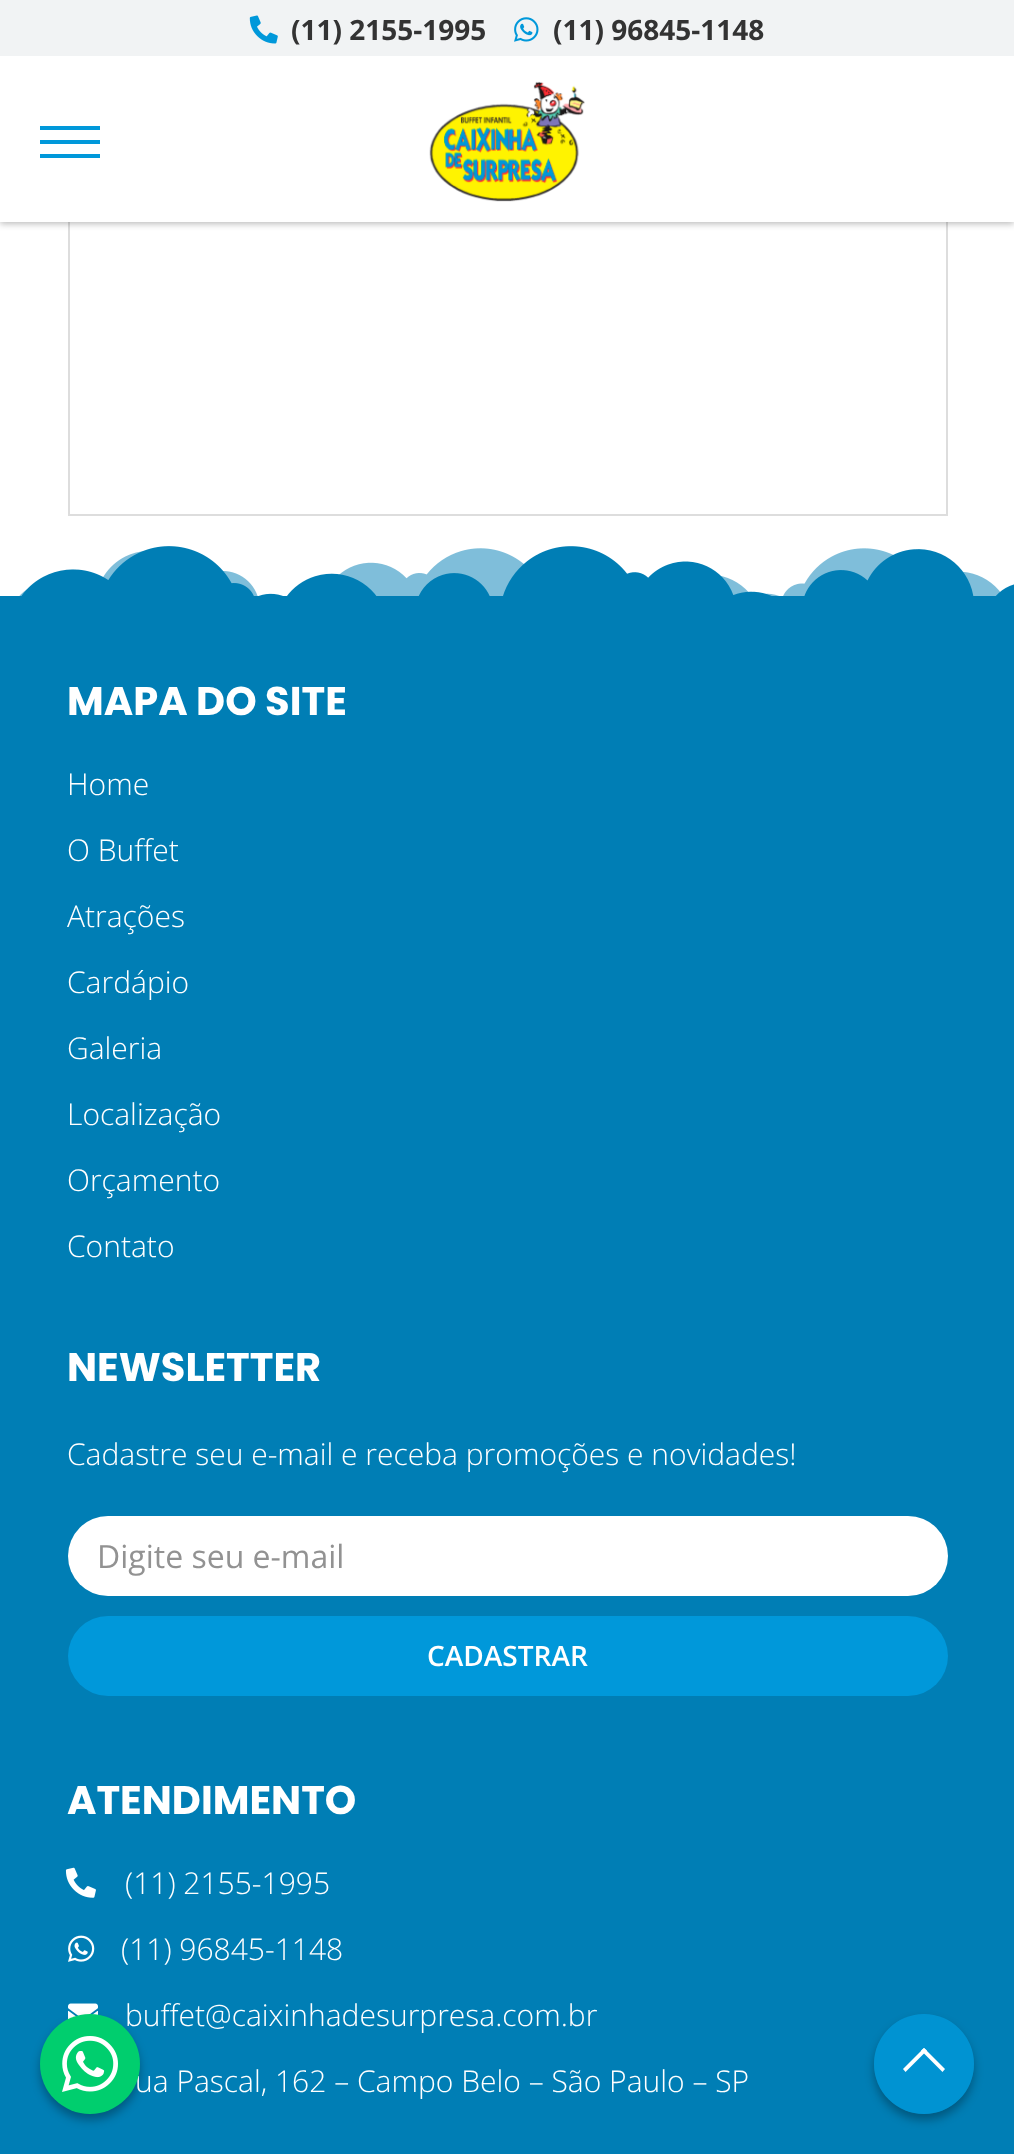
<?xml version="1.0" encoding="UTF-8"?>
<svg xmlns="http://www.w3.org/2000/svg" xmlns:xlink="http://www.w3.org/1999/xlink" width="1014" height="2154">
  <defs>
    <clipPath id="clip1"><path d="M 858 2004 h 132 v 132 h -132 z m 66 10 c 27.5 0 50 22.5 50 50 c 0 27.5 -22.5 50 -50 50 c -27.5 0 -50 -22.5 -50 -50 c 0 -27.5 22.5 -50 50 -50 z" clip-rule="evenodd" /></clipPath>
  </defs>
  <rect width="100%" height="100%" fill="#ffffff" />
  <rect x="69" y="-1" width="878" height="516" fill="none" stroke="#dddddd" stroke-width="2" />
  <rect y="2" width="1014" height="222" fill="#000000" fill-opacity="0.26" filter="blur(3px)" />
  <rect y="56" width="1014" height="166" fill="#ffffff" />
  <rect width="1014" height="56" fill="#f1f3f4" />
  <image x="249" y="15" width="29" height="29" xlink:href="image1.png" />
  <image x="514" y="17" width="25" height="25" xlink:href="image2.png" />
  <rect x="40" y="126" width="60" height="4" fill="#0098da" />
  <rect x="40" y="140" width="60" height="4" fill="#0098da" />
  <rect x="40" y="154" width="60" height="4" fill="#0098da" />
  <image x="429" y="81" width="156" height="121" xlink:href="image3.png" />
  <image x="19" y="546" width="995" height="50" xlink:href="image4.png" />
  <rect y="596" width="1014" height="1558" fill="#007eb5" />
  <rect x="68" y="1516" width="880" height="80" rx="40" fill="#ffffff" />
  <rect x="68" y="1616" width="880" height="80" rx="40" fill="#0098da" />
  <image x="65" y="1867" width="31" height="31" xlink:href="image5.png" />
  <image x="68" y="1935" width="27" height="27" xlink:href="image6.png" />
  <image x="68" y="2003" width="30" height="17" xlink:href="image7.png" />
  <rect x="40" y="2020" width="100" height="100" rx="50" fill="#000000" fill-opacity="0.3" filter="blur(5px)" />
  <g clip-path="url(#clip1)">
    <rect x="874" y="2020" width="100" height="100" rx="50" fill="#000000" fill-opacity="0.3" filter="blur(5px)" />
  </g>
  <circle cx="924" cy="2064" r="50" fill="#0098da" fill-opacity="0.8" />
  <path d="M 924 2048 l 21 21 l -2.5 3 l -21.5 -21.5 z" fill="#ffffff" />
  <path d="M 924 2048 l 3 2.5 l -21.5 21.5 l -2.5 -3 z" fill="#ffffff" />
  <text x="291" y="40" style="font-family: Open Sans; font-size: 28px; font-weight: bold; fill: #333333">(11) 2155-1995</text>
  <text x="553" y="40" style="font-family: Open Sans; font-size: 28px; font-weight: bold; fill: #333333">(11) 96845-1148</text>
  <text x="67" y="715" style="font-family: Poppins; font-size: 40px; font-weight: bold; fill: #ffffff">MAPA DO SITE</text>
  <text x="67" y="795" style="font-family: Open Sans; font-size: 30px; font-weight: 300; fill: #ffffff">Home</text>
  <text x="67" y="861" style="font-family: Open Sans; font-size: 30px; font-weight: 300; fill: #ffffff">O Buffet</text>
  <text x="67" y="927" style="font-family: Open Sans; font-size: 30px; font-weight: 300; fill: #ffffff">Atrações</text>
  <text x="67" y="993" style="font-family: Open Sans; font-size: 30px; font-weight: 300; fill: #ffffff">Cardápio</text>
  <text x="67" y="1059" style="font-family: Open Sans; font-size: 30px; font-weight: 300; fill: #ffffff">Galeria</text>
  <text x="67" y="1125" style="font-family: Open Sans; font-size: 30px; font-weight: 300; fill: #ffffff">Localização</text>
  <text x="67" y="1191" style="font-family: Open Sans; font-size: 30px; font-weight: 300; fill: #ffffff">Orçamento</text>
  <text x="67" y="1257" style="font-family: Open Sans; font-size: 30px; font-weight: 300; fill: #ffffff">Contato</text>
  <text x="67" y="1381" style="font-family: Poppins; font-size: 40px; font-weight: bold; fill: #ffffff">NEWSLETTER</text>
  <text x="67" y="1465" style="font-family: Open Sans; font-size: 30px; font-weight: 300; fill: #ffffff">Cadastre seu e-mail e receba promoções e novidades!</text>
  <text x="97" y="1568" style="font-family: Open Sans; font-size: 32px; fill: #929292">Digite seu e-mail</text>
  <text x="427" y="1666" style="font-family: Open Sans; font-size: 28px; font-weight: 600; fill: #ffffff">CADASTRAR</text>
  <text x="67" y="1814" style="font-family: Poppins; font-size: 40px; font-weight: bold; fill: #ffffff">ATENDIMENTO</text>
  <text x="125" y="1894" style="font-family: Open Sans; font-size: 30px; font-weight: 300; fill: #ffffff">(11) 2155-1995</text>
  <text x="121" y="1960" style="font-family: Open Sans; font-size: 30px; font-weight: 300; fill: #ffffff">(11) 96845-1148</text>
  <text x="125" y="2026" style="font-family: Open Sans; font-size: 30px; font-weight: 300; fill: #ffffff">buffet@caixinhadesurpresa.com.br</text>
  <text x="135" y="2092" style="font-family: Open Sans; font-size: 30px; font-weight: 300; fill: #ffffff">ua Pascal, 162 – Campo Belo – São Paulo – SP</text>
  <circle cx="90" cy="2064" r="50" fill="#00ce6e" />
  <image x="62" y="2036" width="56" height="56" xlink:href="image8.png" />
</svg>
